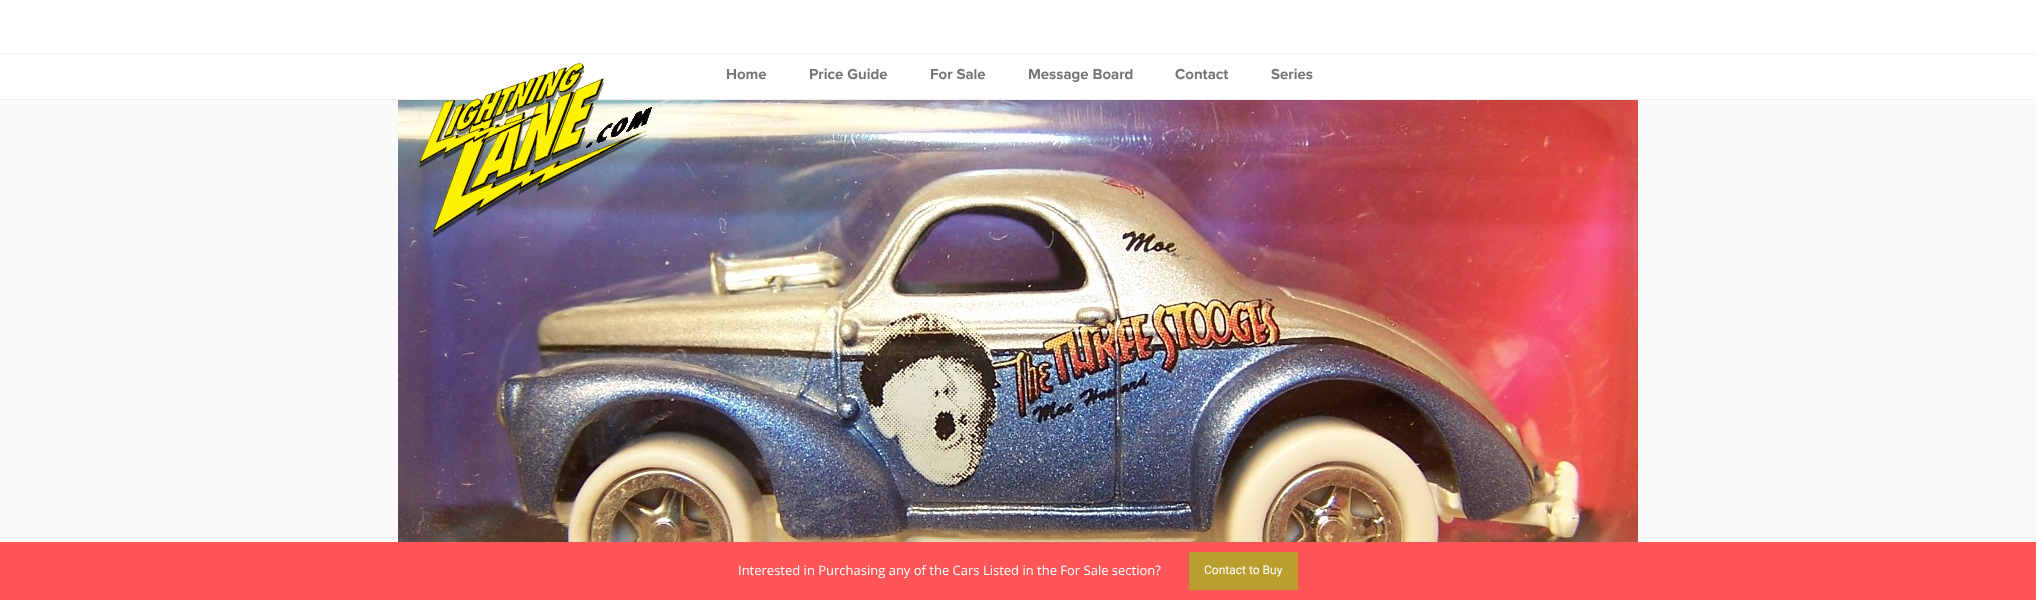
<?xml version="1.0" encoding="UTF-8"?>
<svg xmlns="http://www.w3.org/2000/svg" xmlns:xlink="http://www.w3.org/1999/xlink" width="2036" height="600">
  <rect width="100%" height="100%" fill="#ffffff" />
  <rect y="53" width="2036" height="1" fill="#eeeeee" />
  <rect y="99" width="2036" height="1" fill="#eeeeee" />
  <rect y="100" width="2036" height="442" fill="#fafafa" />
  <image x="398" y="100" width="1240" height="442" xlink:href="image2.png" />
  <image x="419" y="63" width="233" height="175" xlink:href="image1.png" />
  <rect y="542" width="2036" height="58" fill="#fe5656" />
  <rect x="1189" y="552" width="109" height="38" fill="#ba9e2e" />
  <text x="726" y="79" style="font-family: Proxima Nova; font-size: 15px; font-weight: bold; fill: #767676">Home</text>
  <text x="809" y="79" style="font-family: Proxima Nova; font-size: 15px; font-weight: bold; fill: #767676">Price Guide</text>
  <text x="930" y="79" style="font-family: Proxima Nova; font-size: 15px; font-weight: bold; fill: #767676">For Sale</text>
  <text x="1028" y="79" style="font-family: Proxima Nova; font-size: 15px; font-weight: bold; fill: #767676">Message Board</text>
  <text x="1175" y="79" style="font-family: Proxima Nova; font-size: 15px; font-weight: bold; fill: #767676">Contact</text>
  <text x="1271" y="79" style="font-family: Proxima Nova; font-size: 15px; font-weight: bold; fill: #767676">Series</text>
  <text x="738" y="575" style="font-family: Open Sans; font-size: 13px; fill: #ffffff">Interested in Purchasing any of the Cars Listed in the For Sale section?</text>
  <text x="1204" y="574" style="font-family: Roboto; font-size: 12px; fill: #ffffff">Contact to Buy</text>
</svg>
